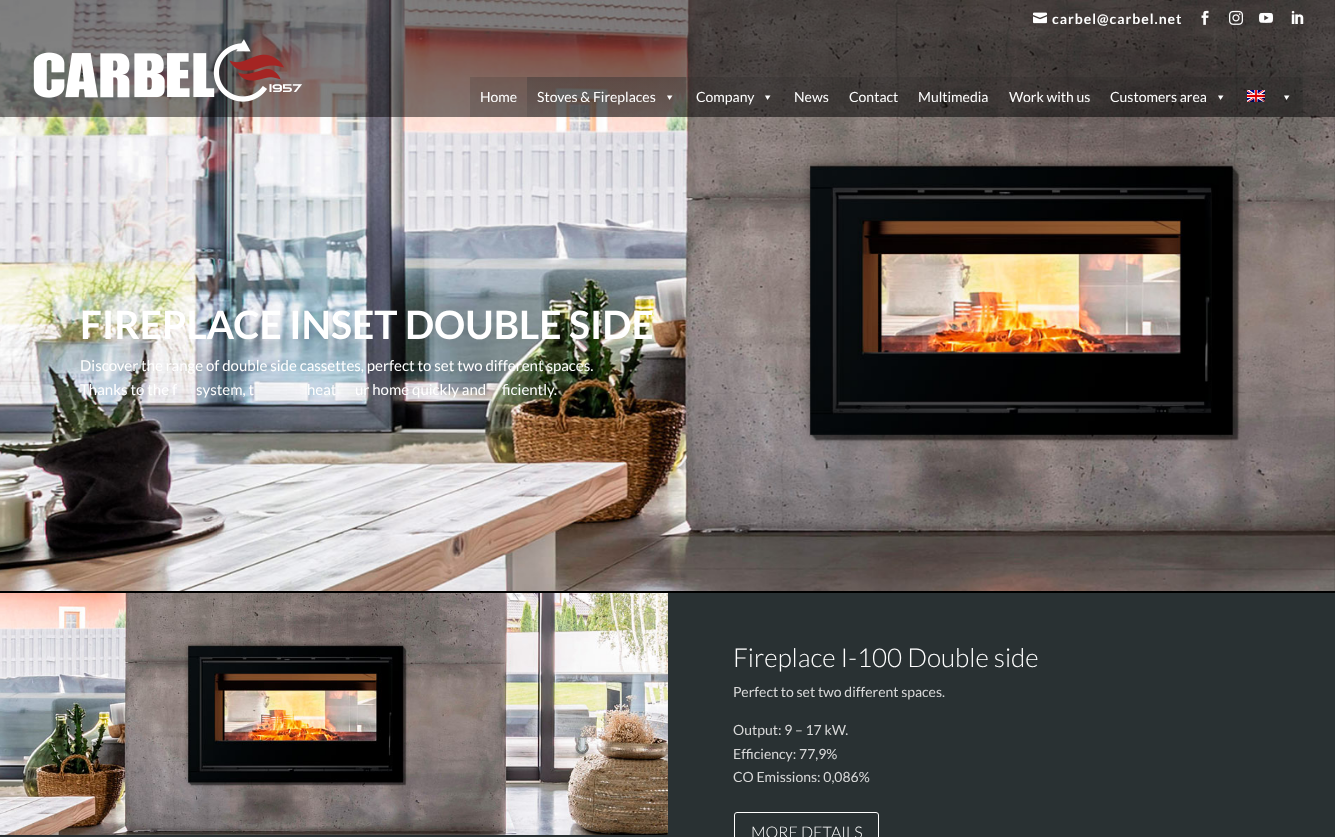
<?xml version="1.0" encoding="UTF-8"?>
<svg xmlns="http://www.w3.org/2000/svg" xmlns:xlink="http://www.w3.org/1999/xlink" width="1335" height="837">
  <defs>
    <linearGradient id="g1" gradientUnits="userSpaceOnUse" x1="607" y1="77" x2="607" y2="117"><stop offset="0" stop-color="#333333" stop-opacity="0.32" /><stop offset="1" stop-color="#333333" stop-opacity="0.17" /></linearGradient>
  </defs>
  <rect width="100%" height="100%" fill="#000000" />
  <image x="0" y="0" width="1335" height="591" xlink:href="image8.png" />
  <rect width="1335" height="36" fill="#000000" fill-opacity="0.49" />
  <image x="1033" y="12" width="14" height="12" xlink:href="image1.png" />
  <image x="1201" y="10" width="8" height="15" xlink:href="image2.png" />
  <image x="1229" y="10" width="14" height="15" xlink:href="image3.png" />
  <image x="1259" y="12" width="14" height="11" xlink:href="image4.png" />
  <image x="1291" y="10" width="13" height="14" xlink:href="image5.png" />
  <rect y="36" width="1335" height="81" fill="#000000" fill-opacity="0.49" />
  <image x="33" y="39" width="269" height="63" xlink:href="image6.png" />
  <rect x="470" y="77" width="833" height="40" fill="#222222" fill-opacity="0.16" />
  <rect x="527" y="77" width="159" height="40" fill="url(#g1)" />
  <path d="M 672.5 95.5 l -3 4.5 l -2.5 -4.5 z" fill="#ffffff" />
  <path d="M 770.5 95.5 l -3 4.5 l -2.5 -4.5 z" fill="#ffffff" />
  <path d="M 1223.5 95.5 l -3 4.5 l -2.5 -4.5 z" fill="#ffffff" />
  <image x="1247" y="90" width="18" height="12" xlink:href="image7.png" />
  <path d="M 1289.5 95.5 l -3 4.5 l -2.5 -4.5 z" fill="#ffffff" />
  <rect y="593" width="1335" height="244" fill="#293133" />
  <image x="0" y="593" width="668" height="242" xlink:href="image9.png" />
  <rect x="734.5" y="812.5" width="144" height="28" rx="2.5" fill="none" stroke="#ffffff" />
  <text x="1052" y="24" style="font-family: Lato; font-size: 14px; font-weight: bold; letter-spacing: 1px; fill: #ffffff">carbel@carbel.net</text>
  <text x="480" y="102" style="font-family: Lato; font-size: 14px; fill: #ffffff">Home</text>
  <text x="537" y="102" style="font-family: Lato; font-size: 14px; fill: #ffffff">Stoves &amp; Fireplaces</text>
  <text x="696" y="102" style="font-family: Lato; font-size: 14px; fill: #ffffff">Company</text>
  <text x="794" y="102" style="font-family: Lato; font-size: 14px; fill: #ffffff">News</text>
  <text x="849" y="102" style="font-family: Lato; font-size: 14px; fill: #ffffff">Contact</text>
  <text x="918" y="102" style="font-family: Lato; font-size: 14px; fill: #ffffff">Multimedia</text>
  <text x="1009" y="102" style="font-family: Lato; font-size: 14px; fill: #ffffff">Work with us</text>
  <text x="1110" y="102" style="font-family: Lato; font-size: 14px; fill: #ffffff">Customers area</text>
  <text x="80" y="339" style="font-family: Lato; font-size: 39px; font-weight: bold; fill: #ffffff">FIREPLACE INSET DOUBLE SIDE</text>
  <text x="80" y="371" style="font-family: Lato; font-size: 15px; fill: #ffffff">Discover the range of double side cassettes, perfect to set two different spaces.</text>
  <text x="80" y="395" style="font-family: Lato; font-size: 15px; fill: #ffffff">Thanks to the f</text>
  <text x="196" y="395" style="font-family: Lato; font-size: 15px; fill: #ffffff">system, t</text>
  <text x="307" y="395" style="font-family: Lato; font-size: 15px; fill: #ffffff">heat</text>
  <text x="355" y="395" style="font-family: Lato; font-size: 15px; fill: #ffffff">ur home quickly and</text>
  <text x="502" y="395" style="font-family: Lato; font-size: 15px; fill: #ffffff">ficiently.</text>
  <text x="733" y="667" style="font-family: Lato; font-size: 26px; font-weight: 300; fill: #ffffff">Fireplace I-100 Double side</text>
  <text x="733" y="697" style="font-family: Lato; font-size: 14px; fill: #d9d9d9">Perfect to set two different spaces.</text>
  <text x="733" y="735" style="font-family: Lato; font-size: 14px; fill: #d9d9d9">Output: 9 – 17 kW.</text>
  <text x="733" y="759" style="font-family: Lato; font-size: 14px; fill: #d9d9d9">Efficiency: 77,9%</text>
  <text x="733" y="782" style="font-family: Lato; font-size: 14px; fill: #d9d9d9">CO Emissions: 0,086%</text>
  <text x="751" y="838" style="font-family: Lato; font-size: 16px; font-weight: 300; fill: #ffffff">MORE DETAILS</text>
</svg>
